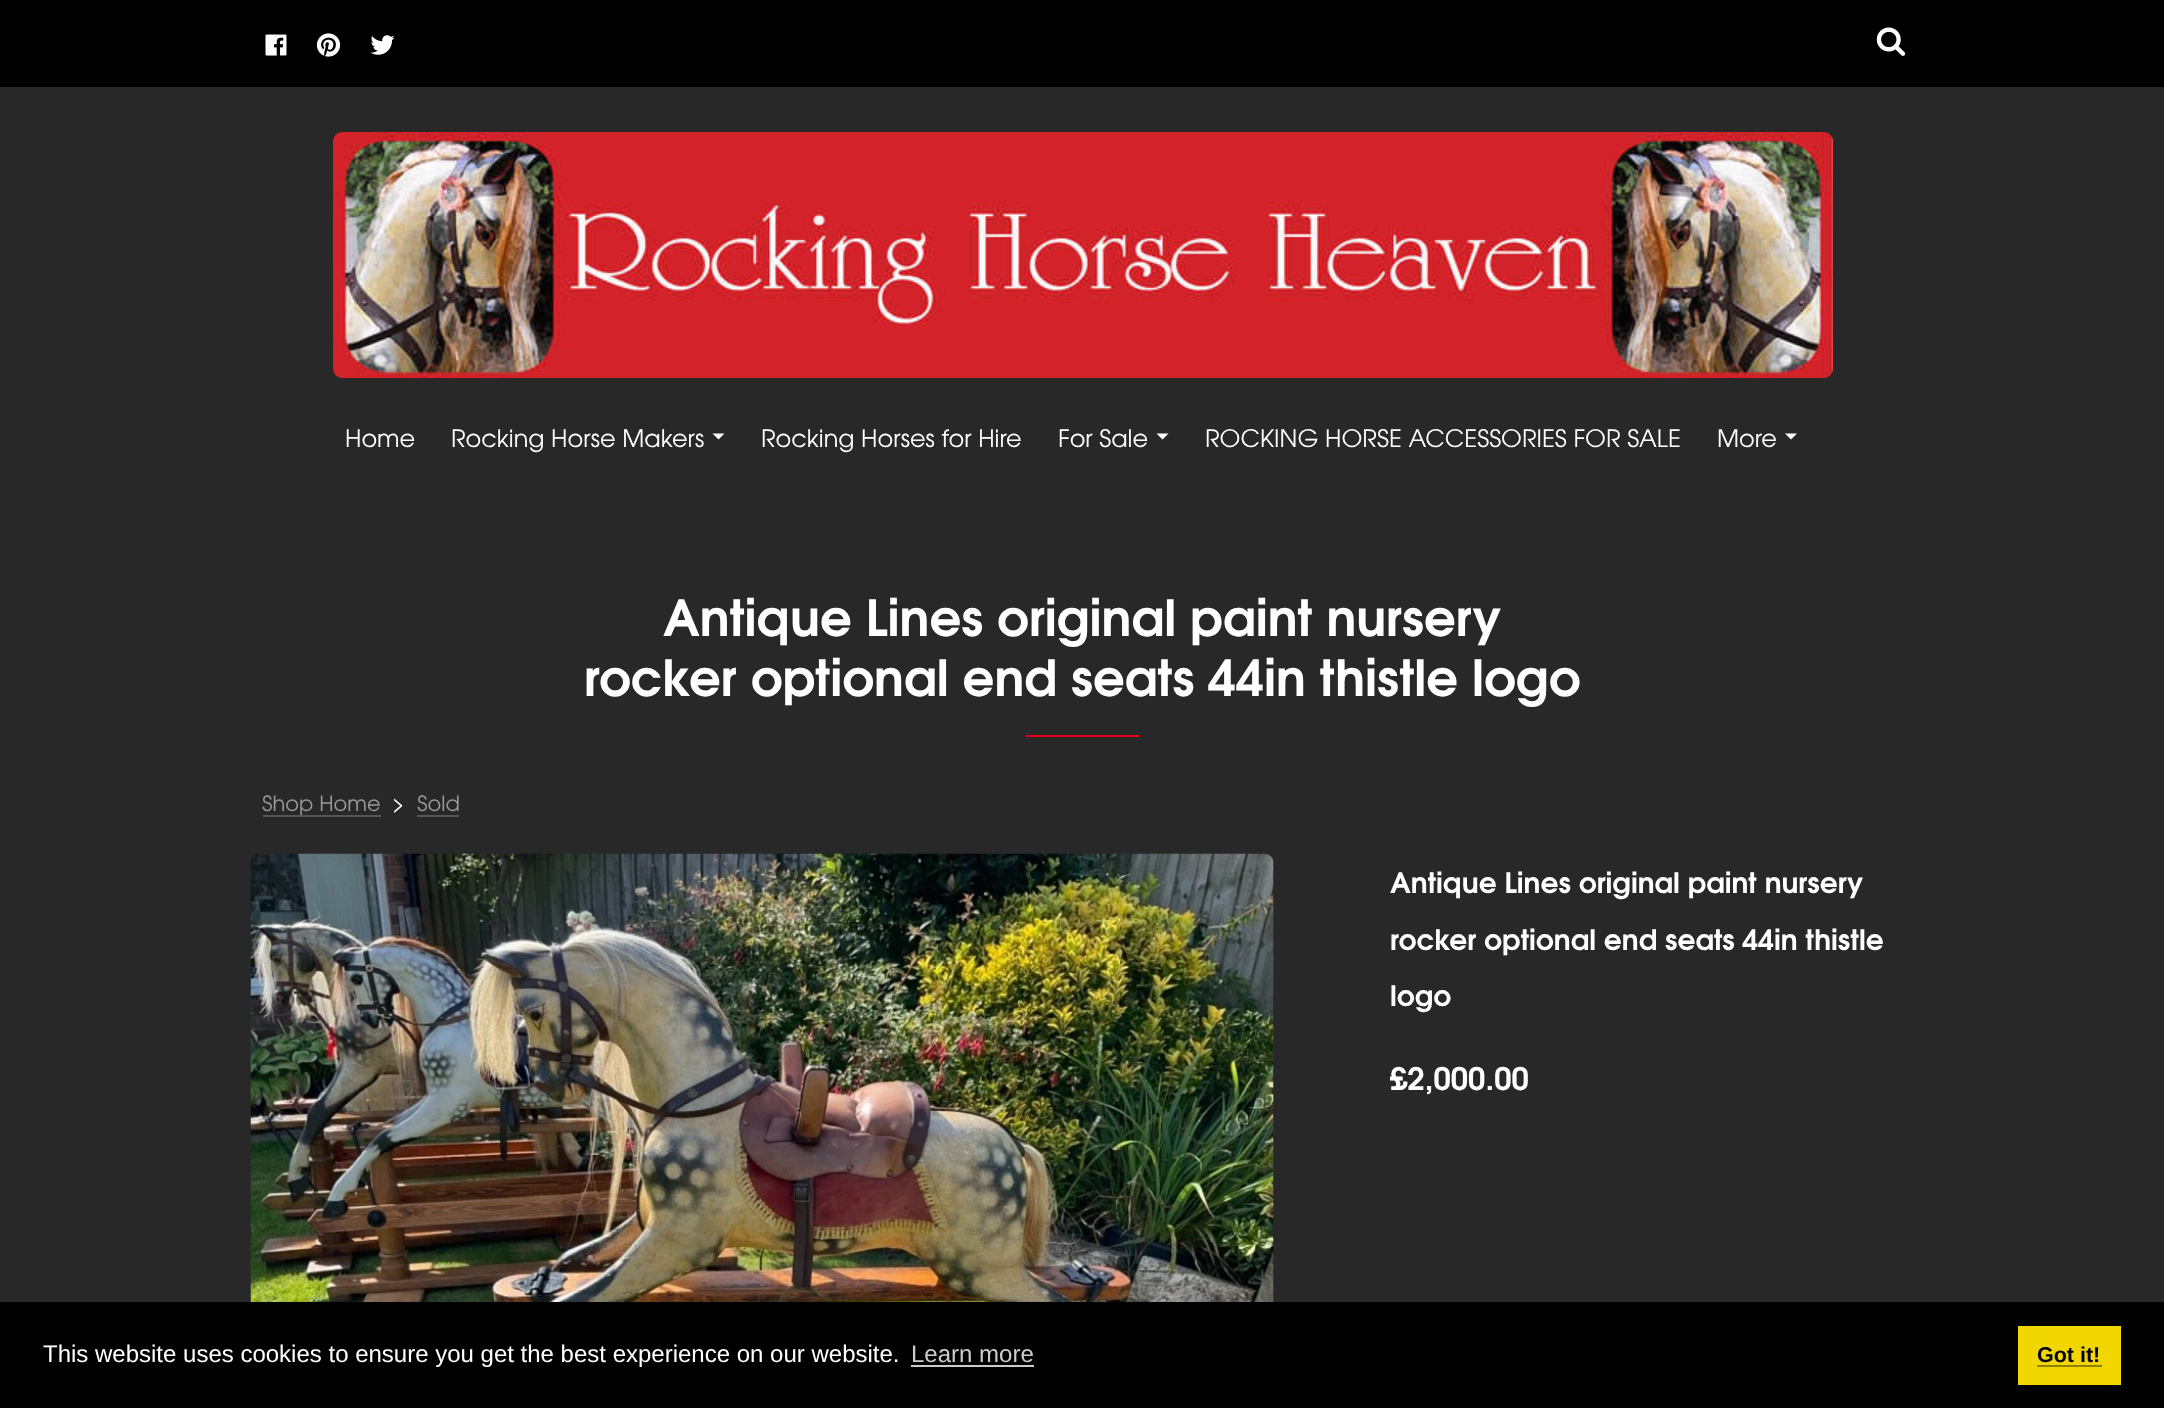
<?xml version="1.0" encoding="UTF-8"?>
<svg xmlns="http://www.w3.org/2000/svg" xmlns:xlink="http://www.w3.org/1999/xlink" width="2164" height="1408">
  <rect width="100%" height="100%" fill="#282828" />
  <rect width="2164" height="87" fill="#000000" />
  <image x="265" y="34" width="22" height="22" xlink:href="image1.png" />
  <image x="316" y="33" width="25" height="24" xlink:href="image2.png" />
  <image x="370" y="35" width="25" height="20" xlink:href="image3.png" />
  <image x="1876" y="27" width="30" height="29" xlink:href="image4.png" />
  <image x="333" y="132" width="1500" height="246" xlink:href="image5.png" />
  <path d="M 712.5 433.5 h 12 l -6 6 z" fill="#ffffff" />
  <path d="M 1156.5 433.5 h 12 l -6 6 z" fill="#ffffff" />
  <path d="M 1785 433.5 h 12 l -6 6 z" fill="#ffffff" />
  <rect x="1026" y="735" width="113" height="2" fill="#e8001b" />
  <rect x="263" y="815" width="118" height="2" fill="#555555" />
  <rect x="417" y="815" width="42" height="2" fill="#555555" />
  <image x="250" y="853" width="1024" height="449" xlink:href="image6.png" />
  <rect y="1302" width="2164" height="106" fill="#000000" />
  <rect x="911" y="1365" width="123" height="2" fill="#cccccc" />
  <rect x="2018" y="1326" width="103" height="59" fill="#f1d600" />
  <rect x="2037" y="1365" width="65" height="2" fill="#918000" />
  <text x="345" y="447" style="font-family: TeX Gyre Adventor; font-size: 24px; fill: #ffffff">Home</text>
  <text x="451" y="447" style="font-family: TeX Gyre Adventor; font-size: 24px; fill: #ffffff">Rocking Horse Makers</text>
  <text x="761" y="447" style="font-family: TeX Gyre Adventor; font-size: 24px; fill: #ffffff">Rocking Horses for Hire</text>
  <text x="1058" y="447" style="font-family: TeX Gyre Adventor; font-size: 24px; fill: #ffffff">For Sale</text>
  <text x="1205" y="447" style="font-family: TeX Gyre Adventor; font-size: 24px; fill: #ffffff">ROCKING HORSE ACCESSORIES FOR SALE</text>
  <text x="1717" y="447" style="font-family: TeX Gyre Adventor; font-size: 24px; fill: #ffffff">More</text>
  <text x="663" y="636" style="font-family: TeX Gyre Adventor; font-size: 49.75px; font-weight: bold; fill: #ffffff">Antique Lines original paint nursery</text>
  <text x="584" y="696" style="font-family: TeX Gyre Adventor; font-size: 49.75px; font-weight: bold; fill: #ffffff">rocker optional end seats 44in thistle logo</text>
  <text x="262" y="811" style="font-family: TeX Gyre Adventor; font-size: 21px; fill: #999999">Shop Home</text>
  <text x="392" y="811" style="font-family: TeX Gyre Adventor; font-size: 21px; fill: #ffffff">&gt;</text>
  <text x="417" y="811" style="font-family: TeX Gyre Adventor; font-size: 21px; fill: #999999">Sold</text>
  <text x="1390" y="893" style="font-family: TeX Gyre Adventor; font-size: 28.1px; font-weight: bold; fill: #ffffff">Antique Lines original paint nursery</text>
  <text x="1390" y="950" style="font-family: TeX Gyre Adventor; font-size: 28.1px; font-weight: bold; fill: #ffffff">rocker optional end seats 44in thistle</text>
  <text x="1390" y="1006" style="font-family: TeX Gyre Adventor; font-size: 28.1px; font-weight: bold; fill: #ffffff">logo</text>
  <text x="1390" y="1090" style="font-family: TeX Gyre Adventor; font-size: 31px; font-weight: bold; fill: #ffffff">£2,000.00</text>
  <text x="43" y="1362" style="font-family: Liberation Sans; font-size: 24px; fill: #ffffff">This website uses cookies to ensure you get the best experience on our website.</text>
  <text x="911" y="1362" style="font-family: Liberation Sans; font-size: 24px; fill: #cccccc">Learn more</text>
  <text x="2037" y="1362" style="font-family: Liberation Sans; font-size: 21.5px; font-weight: bold; fill: #000000">Got it!</text>
</svg>
